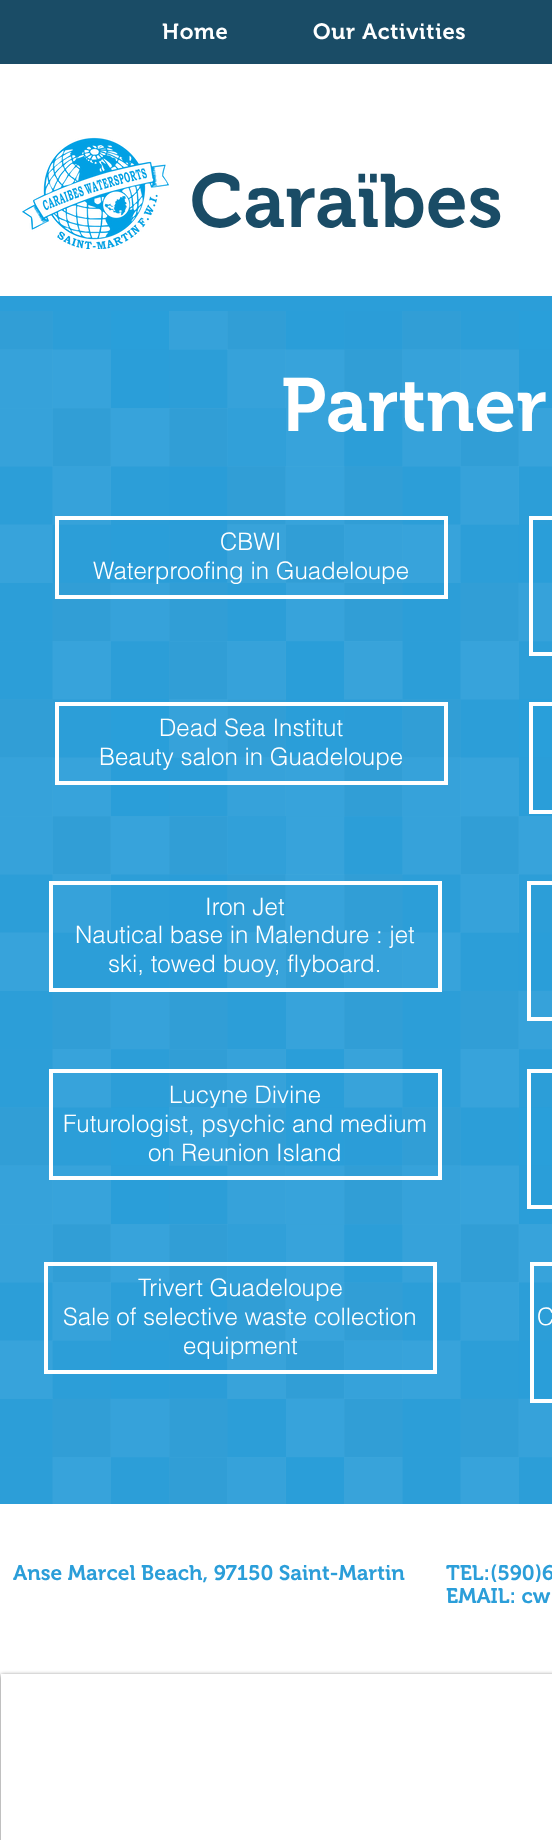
<?xml version="1.0" encoding="UTF-8"?>
<svg xmlns="http://www.w3.org/2000/svg" xmlns:xlink="http://www.w3.org/1999/xlink" width="552" height="1840">
  <defs>
    <clipPath id="clip1"><path d="M 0 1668 h 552 v 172 h -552 z m 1 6 h 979 v 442 h -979 z" clip-rule="evenodd" /></clipPath>
  </defs>
  <rect width="100%" height="100%" fill="#2b9ed9" />
  <rect width="552" height="64" fill="#1a4c66" />
  <rect y="64" width="552" height="232" fill="#ffffff" />
  <image x="22" y="137" width="147" height="112" xlink:href="image1.png" />
  <image x="0" y="311" width="552" height="1193" xlink:href="image2.png" />
  <rect x="57" y="518" width="389" height="79" fill="none" stroke="#ffffff" stroke-width="4" />
  <rect x="531" y="518" width="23" height="136" fill="none" stroke="#ffffff" stroke-width="4" />
  <rect x="57" y="704" width="389" height="79" fill="none" stroke="#ffffff" stroke-width="4" />
  <rect x="531" y="704" width="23" height="108" fill="none" stroke="#ffffff" stroke-width="4" />
  <rect x="51" y="883" width="389" height="107" fill="none" stroke="#ffffff" stroke-width="4" />
  <rect x="529" y="883" width="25" height="136" fill="none" stroke="#ffffff" stroke-width="4" />
  <rect x="51" y="1071" width="389" height="107" fill="none" stroke="#ffffff" stroke-width="4" />
  <rect x="529" y="1071" width="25" height="136" fill="none" stroke="#ffffff" stroke-width="4" />
  <rect x="46" y="1264" width="389" height="108" fill="none" stroke="#ffffff" stroke-width="4" />
  <rect x="532" y="1264" width="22" height="137" fill="none" stroke="#ffffff" stroke-width="4" />
  <rect y="1504" width="552" height="336" fill="#ffffff" />
  <g clip-path="url(#clip1)">
    <rect x="1" y="1675" width="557" height="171" fill="#000000" fill-opacity="0.6" filter="blur(2px)" />
  </g>
  <text x="162" y="39" style="font-family: 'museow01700'; font-size: 22px; font-weight: 600; letter-spacing: 0.7px; fill: #ffffff">Home</text>
  <text x="313" y="39" style="font-family: 'museow01700'; font-size: 22px; font-weight: 600; letter-spacing: 0.7px; fill: #ffffff">Our Activities</text>
  <text x="190" y="227" style="font-family: 'museow01700'; font-size: 75px; font-weight: 600; fill: #1a4c66">Caraïbes</text>
  <text x="281" y="431" style="font-family: 'museow01700'; font-size: 75px; font-weight: 600; fill: #ffffff">Partner</text>
  <text x="220" y="550" style="font-family: helvetica; font-size: 24px; font-weight: 300; fill: #ffffff">CBWI</text>
  <text x="93" y="579" style="font-family: helvetica; font-size: 24px; font-weight: 300; fill: #ffffff">Waterproofing in Guadeloupe</text>
  <text x="159" y="736" style="font-family: helvetica; font-size: 24px; font-weight: 300; fill: #ffffff">Dead Sea Institut</text>
  <text x="99" y="765" style="font-family: helvetica; font-size: 24px; font-weight: 300; fill: #ffffff">Beauty salon in Guadeloupe</text>
  <text x="205" y="915" style="font-family: helvetica; font-size: 24px; font-weight: 300; fill: #ffffff">Iron Jet</text>
  <text x="75" y="943" style="font-family: helvetica; font-size: 24px; font-weight: 300; fill: #ffffff">Nautical base in Malendure : jet</text>
  <text x="108" y="972" style="font-family: helvetica; font-size: 24px; font-weight: 300; fill: #ffffff">ski, towed buoy, flyboard.</text>
  <text x="169" y="1103" style="font-family: helvetica; font-size: 24px; font-weight: 300; fill: #ffffff">Lucyne Divine</text>
  <text x="63" y="1132" style="font-family: helvetica; font-size: 24px; font-weight: 300; fill: #ffffff">Futurologist, psychic and medium</text>
  <text x="148" y="1161" style="font-family: helvetica; font-size: 24px; font-weight: 300; fill: #ffffff">on Reunion Island</text>
  <text x="138" y="1296" style="font-family: helvetica; font-size: 24px; font-weight: 300; fill: #ffffff">Trivert Guadeloupe</text>
  <text x="63" y="1325" style="font-family: helvetica; font-size: 24px; font-weight: 300; fill: #ffffff">Sale of selective waste collection</text>
  <text x="183" y="1354" style="font-family: helvetica; font-size: 24px; font-weight: 300; fill: #ffffff">equipment</text>
  <text x="537" y="1325" style="font-family: helvetica; font-size: 24px; font-weight: 300; fill: #ffffff">C</text>
  <text x="13" y="1580" style="font-family: 'museow01700'; font-size: 21px; font-weight: 600; fill: #2b9ed9">Anse Marcel Beach, 97150 Saint-Martin</text>
  <text x="446" y="1580" style="font-family: 'museow01700'; font-size: 21px; font-weight: 600; fill: #2b9ed9">TEL:(590)6</text>
  <text x="446" y="1603" style="font-family: 'museow01700'; font-size: 21px; font-weight: 600; fill: #2b9ed9">EMAIL: cw</text>
</svg>
